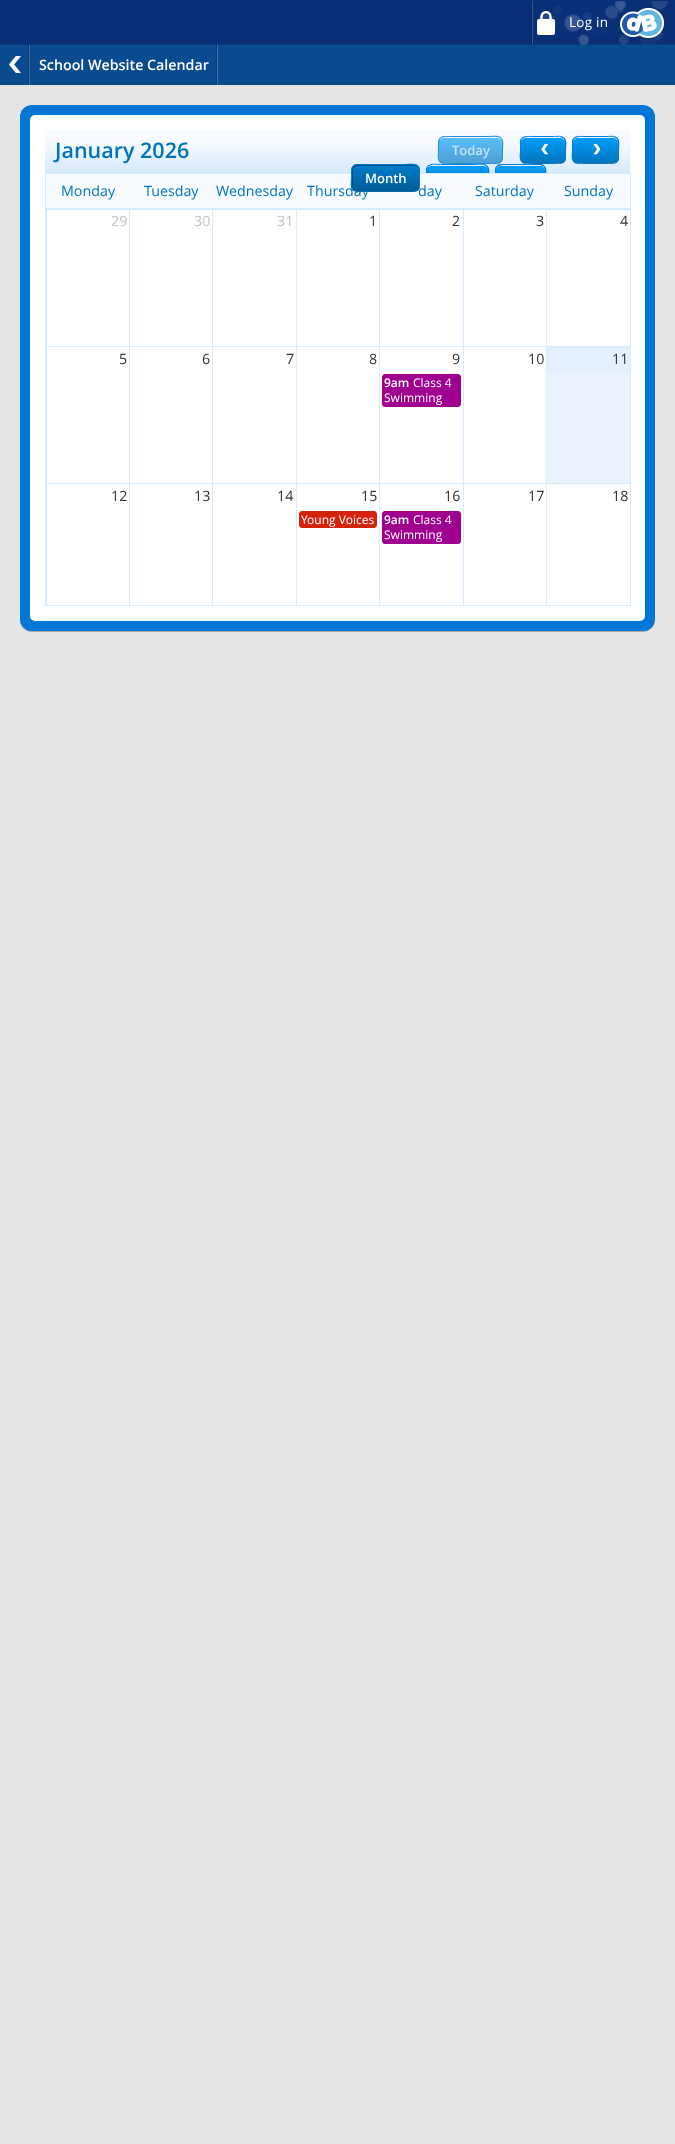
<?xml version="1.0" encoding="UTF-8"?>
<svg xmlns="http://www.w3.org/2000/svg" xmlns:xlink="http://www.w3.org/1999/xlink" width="675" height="2144">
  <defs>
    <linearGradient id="g1" gradientUnits="userSpaceOnUse" x1="338" y1="130" x2="338" y2="173"><stop offset="0.25" stop-color="#f7faff" /><stop offset="1" stop-color="#d6eaff" /></linearGradient>
    <clipPath id="clip1"><rect x="438" y="136" width="65" height="28" rx="6" /></clipPath>
    <linearGradient id="g2" gradientUnits="userSpaceOnUse" x1="471" y1="111" x2="471" y2="137"><stop offset="0" stop-color="#56beff" /><stop offset="1" stop-color="#56a4d3" /></linearGradient>
    <linearGradient id="g3" gradientUnits="userSpaceOnUse" x1="471" y1="137" x2="471" y2="163"><stop offset="0" stop-color="#009eff" stop-opacity="0.65" /><stop offset="1" stop-color="#0075bc" stop-opacity="0.65" /></linearGradient>
    <linearGradient id="g4" gradientUnits="userSpaceOnUse" x1="471" y1="163" x2="471" y2="189"><stop offset="0" stop-color="#4ebaff" /><stop offset="1" stop-color="#4ea0d3" /></linearGradient>
    <clipPath id="clip2"><rect x="520" y="136" width="46" height="28" rx="6" /></clipPath>
    <linearGradient id="g5" gradientUnits="userSpaceOnUse" x1="543" y1="137" x2="543" y2="163"><stop offset="0" stop-color="#009eff" /><stop offset="1" stop-color="#0075bc" /></linearGradient>
    <clipPath id="clip3"><rect x="572" y="136" width="47" height="28" rx="6" /></clipPath>
    <linearGradient id="g6" gradientUnits="userSpaceOnUse" x1="596" y1="137" x2="596" y2="163"><stop offset="0" stop-color="#009eff" /><stop offset="1" stop-color="#0075bc" /></linearGradient>
    <clipPath id="clip4"><rect x="351" y="164" width="69" height="28" rx="6" /></clipPath>
    <linearGradient id="g7" gradientUnits="userSpaceOnUse" x1="386" y1="139" x2="386" y2="165"><stop offset="0" stop-color="#007ecc" /><stop offset="1" stop-color="#005c96" /></linearGradient>
    <clipPath id="clip5"><rect x="426" y="164" width="63" height="28" rx="6" /></clipPath>
    <linearGradient id="g8" gradientUnits="userSpaceOnUse" x1="458" y1="165" x2="458" y2="191"><stop offset="0" stop-color="#009eff" /><stop offset="1" stop-color="#0075bc" /></linearGradient>
    <clipPath id="clip6"><rect x="495" y="164" width="51" height="28" rx="6" /></clipPath>
    <linearGradient id="g9" gradientUnits="userSpaceOnUse" x1="521" y1="139" x2="521" y2="165"><stop offset="0" stop-color="#009eff" /><stop offset="1" stop-color="#0075bc" /></linearGradient>
    <linearGradient id="g10" gradientUnits="userSpaceOnUse" x1="521" y1="165" x2="521" y2="191"><stop offset="0" stop-color="#009eff" /><stop offset="1" stop-color="#0075bc" /></linearGradient>
    <clipPath id="clip7"><rect x="537" y="144" width="13" height="13" /></clipPath>
    <clipPath id="clip8"><rect x="589" y="144" width="13" height="13" /></clipPath>
    <linearGradient id="g11" gradientUnits="userSpaceOnUse" x1="386" y1="165" x2="386" y2="191"><stop offset="0" stop-color="#007ecc" /><stop offset="1" stop-color="#005c96" /></linearGradient>
  </defs>
  <rect width="100%" height="100%" fill="#e5e5e5" />
  <rect y="44" width="675" height="41" fill="#0a4b8f" />
  <image x="216" y="44" width="2" height="41" xlink:href="image4.png" />
  <image x="28" y="44" width="2" height="41" xlink:href="image4.png" />
  <rect y="1" width="675" height="44" fill="#000000" fill-opacity="0.15" filter="blur(0.5px)" />
  <rect width="675" height="44" fill="#093077" />
  <image x="537" y="1" width="131" height="44" xlink:href="image1.png" />
  <image x="531" y="1" width="2" height="43" xlink:href="image2.png" />
  <image x="537" y="11" width="18" height="24" xlink:href="image3.png" />
  <rect x="20" y="106" width="635" height="526" rx="12" fill="#000000" fill-opacity="0.25" filter="blur(0.5px)" />
  <rect x="20" y="105" width="635" height="526" rx="12" fill="#0077d7" />
  <rect x="30" y="115" width="615" height="506" rx="5" fill="#ffffff" />
  <image x="9" y="56" width="12" height="17" xlink:href="image5.png" />
  <rect x="45" y="130" width="585" height="43" fill="url(#g1)" />
  <g clip-path="url(#clip1)">
    <rect x="438" y="136" width="65" height="1" fill="url(#g2)" />
    <rect x="438" y="137" width="65" height="26" fill="url(#g3)" />
    <rect x="438" y="163" width="65" height="1" fill="url(#g4)" />
  </g>
  <path d="M 444 138 h 53 c 3 0 5 2 5 5 c 0 -8 -8 -6 -14 -6 h -35 c -6 0 -14 -2 -14 6 c 0 -3 2 -5 5 -5 z" fill="#ecf7ff" />
  <path d="M 501 138 c 3 3 1.5 8.5 1.5 12 c 0 14 0 13.5 -14.5 13.5 h -35 c -3 0 -10 1.5 -13 -1.5" fill="none" stroke="#0f77b7" stroke-opacity="0.65" />
  <path d="M 440 162 c -3 -3 -1.5 -8.5 -1.5 -12 c 0 -14 0 -13.5 14.5 -13.5 h 35 c 3 0 10 -1.5 13 1.5" fill="none" stroke="#057cdc" stroke-opacity="0.65" />
  <g clip-path="url(#clip2)">
    <rect x="520" y="137" width="46" height="26" fill="url(#g5)" />
  </g>
  <path d="M 526 138 h 34 c 3 0 5 2 5 5 c 0 -7 -5 -6 -11 -6 h -22 c -6 0 -11 -1 -11 6 c 0 -3 2 -5 5 -5 z" fill="#e6f5ff" />
  <path d="M 564 138 c 3 3 1.5 8.5 1.5 12 v 9 c -1 5.5 -7 4.5 -11 4.5 h -23 c -3 0 -7 1 -9.5 -1.5" fill="none" stroke="#0f77b7" />
  <path d="M 522 162 c -3 -3 -1.5 -8.5 -1.5 -12 v -9 c 1 -5.5 7 -4.5 11 -4.5 h 23 c 3 0 7 -1 9.5 1.5" fill="none" stroke="#057cdc" />
  <g clip-path="url(#clip3)">
    <rect x="572" y="137" width="47" height="26" fill="url(#g6)" />
  </g>
  <path d="M 578 138 h 35 c 3 0 5 2 5 5 c 0 -7 -5 -6 -11 -6 h -23 c -6 0 -11 -1 -11 6 c 0 -3 2 -5 5 -5 z" fill="#e6f5ff" />
  <path d="M 617 138 c 3 3 1.5 8.5 1.5 12 v 9 c -1 5.5 -7.5 4.5 -11.5 4.5 h -23 c -3 0 -7.5 1 -10 -1.5" fill="none" stroke="#0f77b7" />
  <path d="M 574 162 c -3 -3 -1.5 -8.5 -1.5 -12 v -9 c 1 -5.5 7.5 -4.5 11.5 -4.5 h 23 c 3 0 7.5 -1 10 1.5" fill="none" stroke="#057cdc" />
  <g clip-path="url(#clip4)">
    <rect x="351" y="164" width="69" height="1" fill="url(#g7)" />
  </g>
  <g clip-path="url(#clip5)">
    <rect x="426" y="165" width="63" height="8" fill="url(#g8)" />
  </g>
  <path d="M 432 166 h 51 c 3 0 5 2 5 5 c 0 -8 -8 -6 -14 -6 h -34 c -5 0 -13 -2 -13 6 c 0 -3 2 -5 5 -5 z" fill="#e6f5ff" />
  <path d="M 487 166 c 3 3 1.5 8.5 1.5 12 v 9 c -1.5 6.5 -10 4.5 -14 4.5 h -34 c -3 0 -9.5 1.5 -12.5 -1.5" fill="none" stroke="#0f77b7" />
  <path d="M 428 190 c -3 -3 -1.5 -8.5 -1.5 -12 v -9 c 1.5 -6.5 10 -4.5 14 -4.5 h 34 c 3 0 9.5 -1.5 12.5 1.5" fill="none" stroke="#057cdc" />
  <g clip-path="url(#clip6)">
    <rect x="495" y="164" width="51" height="1" fill="url(#g9)" />
    <rect x="495" y="165" width="51" height="8" fill="url(#g10)" />
  </g>
  <path d="M 501 166 h 39 c 3 0 5 2 5 5 c 0 -7 -6 -6 -11 -6 h -26 c -6 0 -12 -1 -12 6 c 0 -3 2 -5 5 -5 z" fill="#e6f5ff" />
  <path d="M 544 166 c 3 3 1.5 8.5 1.5 12 c 0 12.5 1 13.5 -12 13.5 h -26 c -3 0 -8 1 -10.5 -1.5" fill="none" stroke="#0f77b7" />
  <path d="M 497 190 c -3 -3 -1.5 -8.5 -1.5 -12 c 0 -12.5 -1 -13.5 12 -13.5 h 26 c 3 0 8 -1 10.5 1.5" fill="none" stroke="#057cdc" />
  <rect x="46" y="174" width="584" height="34" fill="#f7faff" />
  <rect x="45" y="173" width="586" height="1" fill="#d3edfe" />
  <rect x="45" y="208" width="586" height="1" fill="#d3edfe" />
  <rect x="630" y="208" width="1" height="398" fill="#d3edfe" />
  <rect x="630" y="173" width="1" height="36" fill="#d3edfe" />
  <rect x="45" y="605" width="586" height="1" fill="#d3edfe" />
  <rect x="45" y="208" width="1" height="398" fill="#d3edfe" />
  <rect x="45" y="173" width="1" height="36" fill="#d3edfe" />
  <rect x="546" y="209" width="84" height="1" fill="#d3edfe" />
  <rect x="546" y="346" width="84" height="1" fill="#d3edfe" />
  <rect x="546" y="209" width="1" height="138" fill="#d3edfe" />
  <rect x="463" y="209" width="84" height="1" fill="#d3edfe" />
  <rect x="463" y="346" width="84" height="1" fill="#d3edfe" />
  <rect x="463" y="209" width="1" height="138" fill="#d3edfe" />
  <rect x="379" y="209" width="85" height="1" fill="#d3edfe" />
  <rect x="379" y="346" width="85" height="1" fill="#d3edfe" />
  <rect x="379" y="209" width="1" height="138" fill="#d3edfe" />
  <rect x="296" y="209" width="84" height="1" fill="#d3edfe" />
  <rect x="296" y="346" width="84" height="1" fill="#d3edfe" />
  <rect x="296" y="209" width="1" height="138" fill="#d3edfe" />
  <rect x="212" y="209" width="85" height="1" fill="#d3edfe" />
  <rect x="212" y="346" width="85" height="1" fill="#d3edfe" />
  <rect x="212" y="209" width="1" height="138" fill="#d3edfe" />
  <rect x="129" y="209" width="84" height="1" fill="#d3edfe" />
  <rect x="129" y="346" width="84" height="1" fill="#d3edfe" />
  <rect x="129" y="209" width="1" height="138" fill="#d3edfe" />
  <rect x="46" y="209" width="84" height="1" fill="#d3edfe" />
  <rect x="46" y="346" width="84" height="1" fill="#d3edfe" />
  <rect x="46" y="209" width="1" height="138" fill="#d3edfe" />
  <rect x="546" y="483" width="84" height="1" fill="#d3edfe" />
  <rect x="546" y="346" width="1" height="138" fill="#d3edfe" />
  <rect x="463" y="483" width="84" height="1" fill="#d3edfe" />
  <rect x="463" y="346" width="1" height="138" fill="#d3edfe" />
  <rect x="379" y="483" width="85" height="1" fill="#d3edfe" />
  <rect x="379" y="346" width="1" height="138" fill="#d3edfe" />
  <rect x="296" y="483" width="84" height="1" fill="#d3edfe" />
  <rect x="296" y="346" width="1" height="138" fill="#d3edfe" />
  <rect x="212" y="483" width="85" height="1" fill="#d3edfe" />
  <rect x="212" y="346" width="1" height="138" fill="#d3edfe" />
  <rect x="129" y="483" width="84" height="1" fill="#d3edfe" />
  <rect x="129" y="346" width="1" height="138" fill="#d3edfe" />
  <rect x="46" y="483" width="84" height="1" fill="#d3edfe" />
  <rect x="46" y="346" width="1" height="259" fill="#d3edfe" />
  <rect x="547" y="373" width="83" height="110" fill="#e9f3ff" />
  <rect x="547" y="347" width="83" height="26" fill="#e2f0ff" />
  <rect x="382.5" y="374.5" width="78" height="32" rx="2.5" fill="#a0008f" stroke="#a0008f" />
  <rect x="129" y="483" width="1" height="122" fill="#d3edfe" />
  <rect x="212" y="483" width="1" height="122" fill="#d3edfe" />
  <rect x="296" y="483" width="1" height="122" fill="#d3edfe" />
  <rect x="379" y="483" width="1" height="122" fill="#d3edfe" />
  <rect x="463" y="483" width="1" height="122" fill="#d3edfe" />
  <rect x="546" y="483" width="1" height="122" fill="#d3edfe" />
  <rect x="299.5" y="511.5" width="77" height="16" rx="2.5" fill="#d5220b" stroke="#d5220b" />
  <rect x="382.5" y="511.5" width="78" height="32" rx="2.5" fill="#a0008f" stroke="#a0008f" />
  <text x="569" y="27" style="font-family: Open Sans; font-size: 13.5px; letter-spacing: 0.25px; fill: #ffffff">Log in</text>
  <text x="39" y="70" style="font-family: Open Sans; font-size: 14.25px; font-weight: 600; fill: #ffffff">School Website Calendar</text>
  <text x="55" y="158" style="font-family: Open Sans; font-size: 21.5px; font-weight: 600; fill: #0074ba">January 2026</text>
  <text x="452" y="155" style="font-family: Open Sans; font-size: 13px; font-weight: 600; fill: #c3e3f7">Today</text>
  <g clip-path="url(#clip7)">
    <text x="537" y="156" style="font-family: Liberation Mono; font-size: 26px; font-weight: bold; fill: #ffffff">‹</text>
  </g>
  <g clip-path="url(#clip8)">
    <text x="589" y="156" style="font-family: Liberation Mono; font-size: 26px; font-weight: bold; fill: #ffffff">›</text>
  </g>
  <text x="61" y="196" style="font-family: Open Sans; font-size: 14.25px; fill: #0074ba">Monday</text>
  <text x="144" y="196" style="font-family: Open Sans; font-size: 14.25px; fill: #0074ba">Tuesday</text>
  <text x="216" y="196" style="font-family: Open Sans; font-size: 14.25px; fill: #0074ba">Wednesday</text>
  <text x="307" y="196" style="font-family: Open Sans; font-size: 14.25px; fill: #0074ba">Thursday</text>
  <text x="418" y="196" style="font-family: Open Sans; font-size: 14.25px; fill: #0074ba">day</text>
  <g clip-path="url(#clip4)">
    <rect x="351" y="165" width="69" height="26" fill="url(#g11)" />
  </g>
  <path d="M 358 166 h 57 l 3 1 c -1 -1 -3 -2 -4 -2 h -57 c -3 0 -5 2 -5 5 v 16 c 0 1 1 3 2 4 c -2 -3 -1 -8 -1 -11 c 0 -4 -2 -13 5 -13 z" fill="#004b81" />
  <path d="M 418 166 c 1 1 1.5 2.5 1.5 4 v 16 c 0 1.5 -0.5 3 -1.5 4" fill="none" stroke="#0f77b7" />
  <path d="M 418 190 c -1 1 -2.5 1.5 -4 1.5 h -57 c -1.5 0 -3 -0.5 -4 -1.5" fill="none" stroke="#006cae" />
  <path d="M 353 190 c -3 -3 -1.5 -8.5 -1.5 -12 c 0 -14.5 0 -13.5 15 -13.5 h 38 c 2.5 0 10.5 -1.5 13.5 1.5" fill="none" stroke="#057cdc" />
  <text x="365" y="183" style="font-family: Open Sans; font-size: 13px; font-weight: 600; fill: #ffffff">Month</text>
  <text x="475" y="196" style="font-family: Open Sans; font-size: 14.25px; fill: #0074ba">Saturday</text>
  <text x="564" y="196" style="font-family: Open Sans; font-size: 14.25px; fill: #0074ba">Sunday</text>
  <text x="111" y="226" style="font-family: Open Sans; font-size: 14.25px; fill: #c2c2c2">29</text>
  <text x="194" y="226" style="font-family: Open Sans; font-size: 14.25px; fill: #c2c2c2">30</text>
  <text x="277" y="226" style="font-family: Open Sans; font-size: 14.25px; fill: #c2c2c2">31</text>
  <text x="369" y="226" style="font-family: Open Sans; font-size: 14.25px; fill: #333333">1</text>
  <text x="452" y="226" style="font-family: Open Sans; font-size: 14.25px; fill: #333333">2</text>
  <text x="536" y="226" style="font-family: Open Sans; font-size: 14.25px; fill: #333333">3</text>
  <text x="620" y="226" style="font-family: Open Sans; font-size: 14.25px; fill: #333333">4</text>
  <text x="119" y="364" style="font-family: Open Sans; font-size: 14.25px; fill: #333333">5</text>
  <text x="202" y="364" style="font-family: Open Sans; font-size: 14.25px; fill: #333333">6</text>
  <text x="286" y="364" style="font-family: Open Sans; font-size: 14.25px; fill: #333333">7</text>
  <text x="369" y="364" style="font-family: Open Sans; font-size: 14.25px; fill: #333333">8</text>
  <text x="452" y="364" style="font-family: Open Sans; font-size: 14.25px; fill: #333333">9</text>
  <text x="528" y="364" style="font-family: Open Sans; font-size: 14.25px; fill: #333333">10</text>
  <text x="612" y="364" style="font-family: Open Sans; font-size: 14.25px; fill: #333333">11</text>
  <text x="384" y="387" style="font-family: Open Sans; font-size: 12px; font-weight: 600; fill: #ffffff">9am</text>
  <text x="413" y="387" style="font-family: Open Sans; font-size: 12px; fill: #ffffff">Class 4</text>
  <text x="384" y="402" style="font-family: Open Sans; font-size: 12px; fill: #ffffff">Swimming</text>
  <text x="111" y="501" style="font-family: Open Sans; font-size: 14.25px; fill: #333333">12</text>
  <text x="194" y="501" style="font-family: Open Sans; font-size: 14.25px; fill: #333333">13</text>
  <text x="277" y="501" style="font-family: Open Sans; font-size: 14.25px; fill: #333333">14</text>
  <text x="361" y="501" style="font-family: Open Sans; font-size: 14.25px; fill: #333333">15</text>
  <text x="444" y="501" style="font-family: Open Sans; font-size: 14.25px; fill: #333333">16</text>
  <text x="528" y="501" style="font-family: Open Sans; font-size: 14.25px; fill: #333333">17</text>
  <text x="612" y="501" style="font-family: Open Sans; font-size: 14.25px; fill: #333333">18</text>
  <text x="301" y="524" style="font-family: Open Sans; font-size: 12px; fill: #ffffff">Young Voices</text>
  <text x="384" y="524" style="font-family: Open Sans; font-size: 12px; font-weight: 600; fill: #ffffff">9am</text>
  <text x="413" y="524" style="font-family: Open Sans; font-size: 12px; fill: #ffffff">Class 4</text>
  <text x="384" y="539" style="font-family: Open Sans; font-size: 12px; fill: #ffffff">Swimming</text>
</svg>
